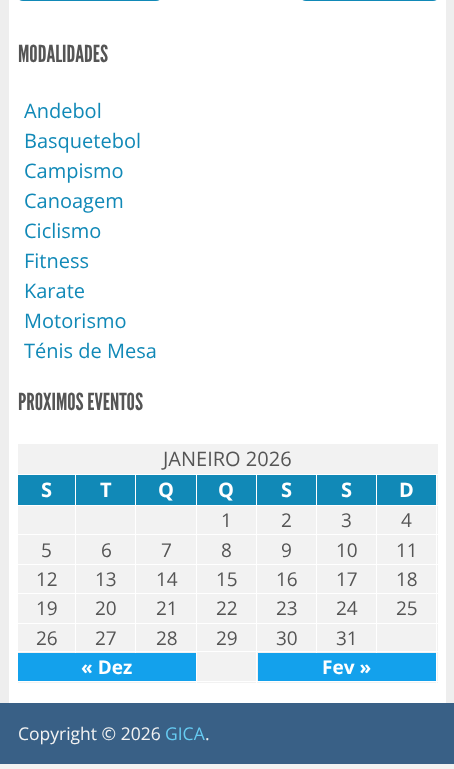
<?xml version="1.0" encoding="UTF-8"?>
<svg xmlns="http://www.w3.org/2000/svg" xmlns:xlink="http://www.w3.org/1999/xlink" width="454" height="769">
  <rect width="100%" height="100%" fill="#eeeeee" />
  <rect y="764" width="454" height="5" fill="#f2f2f2" />
  <rect x="9" width="437" height="703" fill="#ffffff" />
  <rect x="18" y="-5" width="143" height="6" rx="5" fill="#1189b7" />
  <rect x="301" y="-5" width="137" height="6" rx="5" fill="#1189b7" />
  <rect x="18" y="444" width="420" height="239" fill="#f2f2f2" />
  <rect x="18" y="475" width="57" height="30" fill="#1189b7" />
  <rect x="18" y="474" width="420" height="1" fill="#ffffff" />
  <rect x="436" y="505" width="1" height="178" fill="#ffffff" />
  <rect x="436" y="474" width="1" height="32" fill="#ffffff" />
  <rect x="376" y="651" width="62" height="1" fill="#ffffff" />
  <rect x="376" y="623" width="1" height="30" fill="#ffffff" />
  <rect x="376" y="623" width="62" height="1" fill="#ffffff" />
  <rect x="376" y="593" width="1" height="31" fill="#ffffff" />
  <rect x="376" y="593" width="62" height="1" fill="#ffffff" />
  <rect x="376" y="564" width="1" height="30" fill="#ffffff" />
  <rect x="376" y="564" width="62" height="1" fill="#ffffff" />
  <rect x="376" y="534" width="1" height="31" fill="#ffffff" />
  <rect x="376" y="534" width="62" height="1" fill="#ffffff" />
  <rect x="376" y="505" width="1" height="30" fill="#ffffff" />
  <rect x="376" y="505" width="62" height="1" fill="#ffffff" />
  <rect x="376" y="474" width="1" height="32" fill="#ffffff" />
  <rect x="316" y="651" width="62" height="1" fill="#ffffff" />
  <rect x="316" y="623" width="1" height="30" fill="#ffffff" />
  <rect x="316" y="623" width="62" height="1" fill="#ffffff" />
  <rect x="316" y="593" width="1" height="31" fill="#ffffff" />
  <rect x="316" y="593" width="62" height="1" fill="#ffffff" />
  <rect x="316" y="564" width="1" height="30" fill="#ffffff" />
  <rect x="316" y="564" width="62" height="1" fill="#ffffff" />
  <rect x="316" y="534" width="1" height="31" fill="#ffffff" />
  <rect x="316" y="534" width="62" height="1" fill="#ffffff" />
  <rect x="316" y="505" width="1" height="30" fill="#ffffff" />
  <rect x="316" y="505" width="62" height="1" fill="#ffffff" />
  <rect x="316" y="474" width="1" height="32" fill="#ffffff" />
  <rect x="256" y="681" width="182" height="1" fill="#ffffff" />
  <rect x="256" y="651" width="1" height="32" fill="#ffffff" />
  <rect x="256" y="651" width="62" height="1" fill="#ffffff" />
  <rect x="256" y="623" width="1" height="30" fill="#ffffff" />
  <rect x="256" y="623" width="62" height="1" fill="#ffffff" />
  <rect x="256" y="593" width="1" height="31" fill="#ffffff" />
  <rect x="256" y="593" width="62" height="1" fill="#ffffff" />
  <rect x="256" y="564" width="1" height="30" fill="#ffffff" />
  <rect x="256" y="564" width="62" height="1" fill="#ffffff" />
  <rect x="256" y="534" width="1" height="31" fill="#ffffff" />
  <rect x="256" y="534" width="62" height="1" fill="#ffffff" />
  <rect x="256" y="505" width="1" height="30" fill="#ffffff" />
  <rect x="256" y="505" width="62" height="1" fill="#ffffff" />
  <rect x="256" y="474" width="1" height="32" fill="#ffffff" />
  <rect x="196" y="681" width="62" height="1" fill="#ffffff" />
  <rect x="196" y="651" width="1" height="32" fill="#ffffff" />
  <rect x="196" y="651" width="62" height="1" fill="#ffffff" />
  <rect x="196" y="623" width="1" height="30" fill="#ffffff" />
  <rect x="196" y="623" width="62" height="1" fill="#ffffff" />
  <rect x="196" y="593" width="1" height="31" fill="#ffffff" />
  <rect x="196" y="593" width="62" height="1" fill="#ffffff" />
  <rect x="196" y="564" width="1" height="30" fill="#ffffff" />
  <rect x="196" y="564" width="62" height="1" fill="#ffffff" />
  <rect x="196" y="534" width="1" height="31" fill="#ffffff" />
  <rect x="196" y="534" width="62" height="1" fill="#ffffff" />
  <rect x="196" y="505" width="1" height="30" fill="#ffffff" />
  <rect x="196" y="505" width="62" height="1" fill="#ffffff" />
  <rect x="196" y="474" width="1" height="32" fill="#ffffff" />
  <rect x="135" y="651" width="63" height="1" fill="#ffffff" />
  <rect x="135" y="623" width="1" height="30" fill="#ffffff" />
  <rect x="135" y="623" width="63" height="1" fill="#ffffff" />
  <rect x="135" y="593" width="1" height="31" fill="#ffffff" />
  <rect x="135" y="593" width="63" height="1" fill="#ffffff" />
  <rect x="135" y="564" width="1" height="30" fill="#ffffff" />
  <rect x="135" y="564" width="63" height="1" fill="#ffffff" />
  <rect x="135" y="534" width="1" height="31" fill="#ffffff" />
  <rect x="135" y="534" width="63" height="1" fill="#ffffff" />
  <rect x="135" y="505" width="1" height="30" fill="#ffffff" />
  <rect x="135" y="505" width="63" height="1" fill="#ffffff" />
  <rect x="135" y="474" width="1" height="32" fill="#ffffff" />
  <rect x="75" y="651" width="61" height="1" fill="#ffffff" />
  <rect x="75" y="623" width="1" height="30" fill="#ffffff" />
  <rect x="75" y="623" width="61" height="1" fill="#ffffff" />
  <rect x="75" y="593" width="1" height="31" fill="#ffffff" />
  <rect x="75" y="593" width="61" height="1" fill="#ffffff" />
  <rect x="75" y="564" width="1" height="30" fill="#ffffff" />
  <rect x="75" y="564" width="61" height="1" fill="#ffffff" />
  <rect x="75" y="534" width="1" height="31" fill="#ffffff" />
  <rect x="75" y="534" width="61" height="1" fill="#ffffff" />
  <rect x="75" y="505" width="1" height="30" fill="#ffffff" />
  <rect x="75" y="505" width="61" height="1" fill="#ffffff" />
  <rect x="75" y="474" width="1" height="32" fill="#ffffff" />
  <rect x="18" y="505" width="58" height="1" fill="#ffffff" />
  <rect x="76" y="475" width="59" height="30" fill="#1189b7" />
  <rect x="136" y="475" width="60" height="30" fill="#1189b7" />
  <rect x="197" y="475" width="59" height="30" fill="#1189b7" />
  <rect x="257" y="475" width="59" height="30" fill="#1189b7" />
  <rect x="317" y="475" width="59" height="30" fill="#1189b7" />
  <rect x="377" y="475" width="59" height="30" fill="#1189b7" />
  <rect x="18" y="534" width="58" height="1" fill="#ffffff" />
  <rect x="18" y="564" width="58" height="1" fill="#ffffff" />
  <rect x="18" y="593" width="58" height="1" fill="#ffffff" />
  <rect x="18" y="623" width="58" height="1" fill="#ffffff" />
  <rect x="18" y="651" width="58" height="1" fill="#ffffff" />
  <rect x="18" y="681" width="180" height="1" fill="#ffffff" />
  <rect x="18" y="653" width="178" height="28" fill="#13a1ec" />
  <rect x="258" y="653" width="178" height="28" fill="#13a1ec" />
  <rect y="703" width="454" height="61" fill="#396086" />
  <text x="18" y="62" style="font-family: League Gothic; font-size: 23.5px; fill: #555555">MODALIDADES</text>
  <text x="24" y="118" style="font-family: Open Sans; font-size: 20px; fill: #1189b7">Andebol</text>
  <text x="24" y="148" style="font-family: Open Sans; font-size: 20px; fill: #1189b7">Basquetebol</text>
  <text x="24" y="178" style="font-family: Open Sans; font-size: 20px; fill: #1189b7">Campismo</text>
  <text x="24" y="208" style="font-family: Open Sans; font-size: 20px; fill: #1189b7">Canoagem</text>
  <text x="24" y="238" style="font-family: Open Sans; font-size: 20px; fill: #1189b7">Ciclismo</text>
  <text x="24" y="268" style="font-family: Open Sans; font-size: 20px; fill: #1189b7">Fitness</text>
  <text x="24" y="298" style="font-family: Open Sans; font-size: 20px; fill: #1189b7">Karate</text>
  <text x="24" y="328" style="font-family: Open Sans; font-size: 20px; fill: #1189b7">Motorismo</text>
  <text x="24" y="358" style="font-family: Open Sans; font-size: 20px; fill: #1189b7">Ténis de Mesa</text>
  <text x="18" y="410" style="font-family: League Gothic; font-size: 23.5px; fill: #555555">PROXIMOS EVENTOS</text>
  <text x="163" y="466" style="font-family: Open Sans; font-size: 20px; fill: #555555">JANEIRO 2026</text>
  <text x="41" y="497" style="font-family: Open Sans; font-size: 20px; font-weight: bold; fill: #ffffff">S</text>
  <text x="100" y="497" style="font-family: Open Sans; font-size: 20px; font-weight: bold; fill: #ffffff">T</text>
  <text x="158" y="497" style="font-family: Open Sans; font-size: 20px; font-weight: bold; fill: #ffffff">Q</text>
  <text x="218" y="497" style="font-family: Open Sans; font-size: 20px; font-weight: bold; fill: #ffffff">Q</text>
  <text x="281" y="497" style="font-family: Open Sans; font-size: 20px; font-weight: bold; fill: #ffffff">S</text>
  <text x="341" y="497" style="font-family: Open Sans; font-size: 20px; font-weight: bold; fill: #ffffff">S</text>
  <text x="399" y="497" style="font-family: Open Sans; font-size: 20px; font-weight: bold; fill: #ffffff">D</text>
  <text x="221" y="527" style="font-family: Open Sans; font-size: 19px; fill: #555555">1</text>
  <text x="281" y="527" style="font-family: Open Sans; font-size: 19px; fill: #555555">2</text>
  <text x="341" y="527" style="font-family: Open Sans; font-size: 19px; fill: #555555">3</text>
  <text x="401" y="527" style="font-family: Open Sans; font-size: 19px; fill: #555555">4</text>
  <text x="41" y="557" style="font-family: Open Sans; font-size: 19px; fill: #555555">5</text>
  <text x="101" y="557" style="font-family: Open Sans; font-size: 19px; fill: #555555">6</text>
  <text x="161" y="557" style="font-family: Open Sans; font-size: 19px; fill: #555555">7</text>
  <text x="221" y="557" style="font-family: Open Sans; font-size: 19px; fill: #555555">8</text>
  <text x="281" y="557" style="font-family: Open Sans; font-size: 19px; fill: #555555">9</text>
  <text x="336" y="557" style="font-family: Open Sans; font-size: 19px; fill: #555555">10</text>
  <text x="396" y="557" style="font-family: Open Sans; font-size: 19px; fill: #555555">11</text>
  <text x="36" y="586" style="font-family: Open Sans; font-size: 19px; fill: #555555">12</text>
  <text x="95" y="586" style="font-family: Open Sans; font-size: 19px; fill: #555555">13</text>
  <text x="156" y="586" style="font-family: Open Sans; font-size: 19px; fill: #555555">14</text>
  <text x="216" y="586" style="font-family: Open Sans; font-size: 19px; fill: #555555">15</text>
  <text x="276" y="586" style="font-family: Open Sans; font-size: 19px; fill: #555555">16</text>
  <text x="336" y="586" style="font-family: Open Sans; font-size: 19px; fill: #555555">17</text>
  <text x="396" y="586" style="font-family: Open Sans; font-size: 19px; fill: #555555">18</text>
  <text x="36" y="615" style="font-family: Open Sans; font-size: 19px; fill: #555555">19</text>
  <text x="95" y="615" style="font-family: Open Sans; font-size: 19px; fill: #555555">20</text>
  <text x="156" y="615" style="font-family: Open Sans; font-size: 19px; fill: #555555">21</text>
  <text x="216" y="615" style="font-family: Open Sans; font-size: 19px; fill: #555555">22</text>
  <text x="276" y="615" style="font-family: Open Sans; font-size: 19px; fill: #555555">23</text>
  <text x="336" y="615" style="font-family: Open Sans; font-size: 19px; fill: #555555">24</text>
  <text x="396" y="615" style="font-family: Open Sans; font-size: 19px; fill: #555555">25</text>
  <text x="36" y="645" style="font-family: Open Sans; font-size: 19px; fill: #555555">26</text>
  <text x="95" y="645" style="font-family: Open Sans; font-size: 19px; fill: #555555">27</text>
  <text x="156" y="645" style="font-family: Open Sans; font-size: 19px; fill: #555555">28</text>
  <text x="216" y="645" style="font-family: Open Sans; font-size: 19px; fill: #555555">29</text>
  <text x="276" y="645" style="font-family: Open Sans; font-size: 19px; fill: #555555">30</text>
  <text x="336" y="645" style="font-family: Open Sans; font-size: 19px; fill: #555555">31</text>
  <text x="81" y="674" style="font-family: Open Sans; font-size: 19px; font-weight: bold; fill: #ffffff">« Dez</text>
  <text x="322" y="674" style="font-family: Open Sans; font-size: 19px; font-weight: bold; fill: #ffffff">Fev »</text>
  <text x="18" y="740" style="font-family: Open Sans; font-size: 17.5px; fill: #f2f2f2">Copyright © 2026</text>
  <text x="165" y="740" style="font-family: Open Sans; font-size: 17.5px; fill: #66cbf2">GICA</text>
  <text x="205" y="740" style="font-family: Open Sans; font-size: 17.5px; fill: #f2f2f2">.</text>
</svg>
